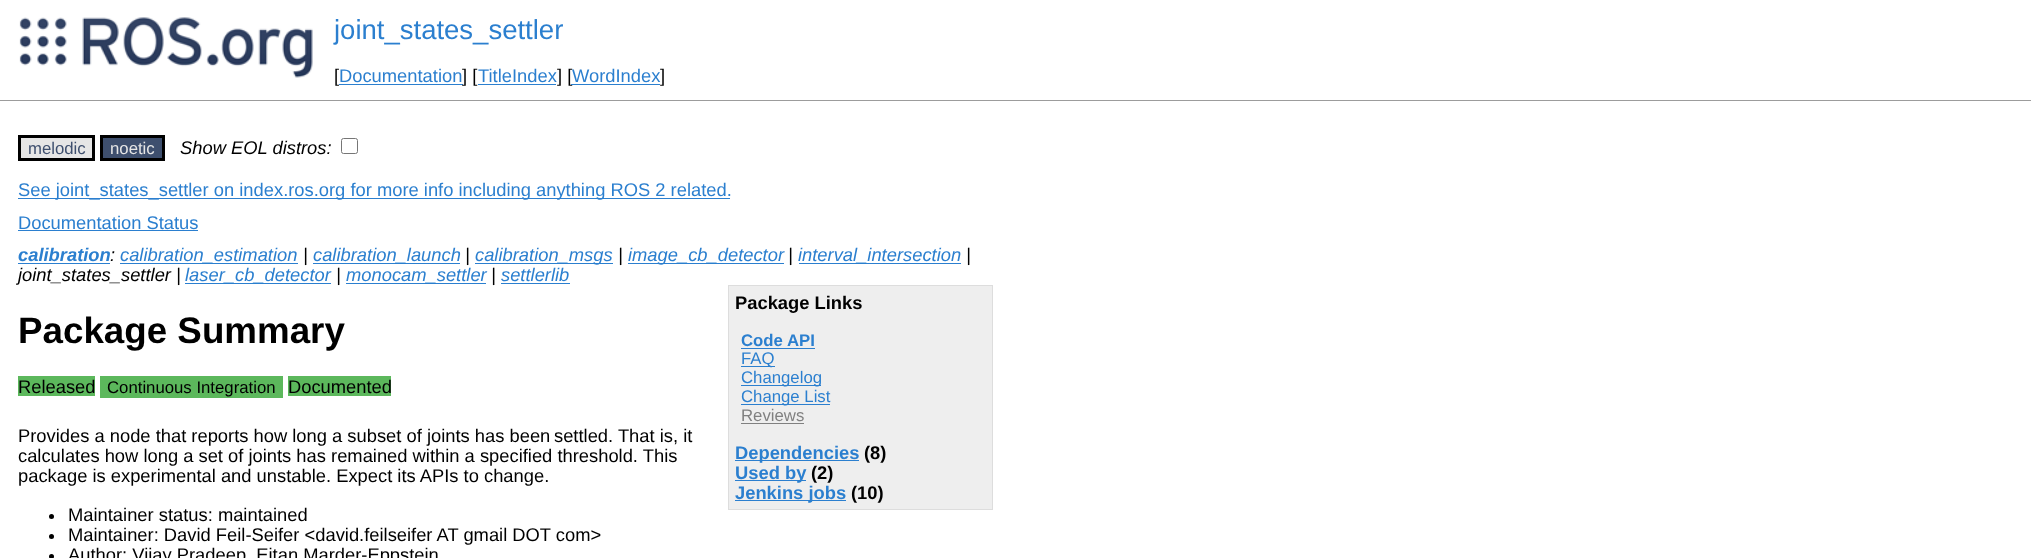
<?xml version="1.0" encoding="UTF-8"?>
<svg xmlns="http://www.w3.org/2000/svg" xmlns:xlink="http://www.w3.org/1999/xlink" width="2031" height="558">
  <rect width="100%" height="100%" fill="#ffffff" />
  <image x="19" y="17" width="294" height="61" xlink:href="image1.png" />
  <rect x="478" y="84" width="78" height="1" fill="#2b7fcf" />
  <rect y="100" width="2031" height="1" fill="#9c9c9c" />
  <rect x="19.5" y="136.5" width="74" height="23" fill="#e6e6e6" stroke="#000000" stroke-width="3" />
  <rect x="101.5" y="136.5" width="62" height="23" fill="#3e4f6e" stroke="#000000" stroke-width="3" />
  <rect x="341.5" y="138.5" width="16" height="15" rx="2" fill="none" stroke="#767676" />
  <rect x="18" y="198" width="712" height="1" fill="#2b7fcf" />
  <rect x="18" y="230" width="180" height="1" fill="#2b7fcf" />
  <rect x="18" y="263" width="92" height="1" fill="#2b7fcf" />
  <rect x="120" y="263" width="178" height="1" fill="#2b7fcf" />
  <rect x="313" y="263" width="147" height="1" fill="#2b7fcf" />
  <rect x="475" y="263" width="138" height="1" fill="#2b7fcf" />
  <rect x="628" y="263" width="156" height="1" fill="#2b7fcf" />
  <rect x="799" y="263" width="162" height="1" fill="#2b7fcf" />
  <rect x="185" y="283" width="146" height="1" fill="#2b7fcf" />
  <rect x="346" y="283" width="140" height="1" fill="#2b7fcf" />
  <rect x="501" y="283" width="69" height="1" fill="#2b7fcf" />
  <rect x="728.5" y="285.5" width="264" height="224" fill="#eeeeee" stroke="#dddddd" />
  <rect x="741" y="348" width="74" height="1" fill="#2b7fcf" />
  <rect x="741" y="366" width="34" height="1" fill="#2b7fcf" />
  <rect x="741" y="385" width="80" height="1" fill="#2b7fcf" />
  <rect x="741" y="404" width="89" height="1" fill="#2b7fcf" />
  <rect x="741" y="423" width="63" height="1" fill="#808080" />
  <rect x="735" y="460" width="124" height="1" fill="#2b7fcf" />
  <rect x="735" y="480" width="71" height="1" fill="#2b7fcf" />
  <rect x="735" y="500" width="111" height="1" fill="#2b7fcf" />
  <rect x="18" y="376" width="77" height="20" fill="#5cb85c" />
  <rect x="100" y="376" width="183" height="22" fill="#5cb85c" />
  <rect x="288" y="376" width="103" height="20" fill="#5cb85c" />
  <circle cx="51.5" cy="516.5" r="2.5" fill="#000000" />
  <circle cx="51.5" cy="536.5" r="2.5" fill="#000000" />
  <circle cx="51.5" cy="556.5" r="2.5" fill="#000000" />
  <text x="334" y="39" style="font-family: Liberation Sans; font-size: 27.5px; fill: #2b7fcf">joint_states_settler</text>
  <text x="334" y="82" style="font-family: Liberation Sans; font-size: 18.35px; fill: #000000">[</text>
  <text x="339" y="82" style="font-family: Liberation Sans; font-size: 18.35px; fill: #2b7fcf">Documentation</text>
  <rect x="339" y="84" width="124" height="1" fill="#2b7fcf" />
  <text x="462" y="82" style="font-family: Liberation Sans; font-size: 18.35px; fill: #000000">] [</text>
  <text x="478" y="82" style="font-family: Liberation Sans; font-size: 18.35px; fill: #2b7fcf">TitleIndex</text>
  <text x="557" y="82" style="font-family: Liberation Sans; font-size: 18.35px; fill: #000000">] [</text>
  <text x="572" y="82" style="font-family: Liberation Sans; font-size: 18.35px; fill: #2b7fcf">WordIndex</text>
  <rect x="571" y="84" width="89" height="1" fill="#2b7fcf" />
  <text x="660" y="82" style="font-family: Liberation Sans; font-size: 18.35px; fill: #000000">]</text>
  <text x="28" y="154" style="font-family: Liberation Sans; font-size: 16.75px; fill: #3e4f6e">melodic</text>
  <text x="110" y="154" style="font-family: Liberation Sans; font-size: 16.75px; fill: #e6e6e6">noetic</text>
  <text x="180" y="154" style="font-family: Liberation Sans; font-size: 18.35px; font-style: italic; fill: #000000">Show EOL distros:</text>
  <text x="18" y="196" style="font-family: Liberation Sans; font-size: 18.35px; fill: #2b7fcf">See joint_states_settler on index.ros.org for more info including anything ROS 2 related.</text>
  <text x="18" y="229" style="font-family: Liberation Sans; font-size: 18.35px; fill: #2b7fcf">Documentation Status</text>
  <text x="18" y="261" style="font-family: Liberation Sans; font-size: 18.35px; font-weight: bold; font-style: italic; fill: #2b7fcf">calibration</text>
  <text x="110" y="261" style="font-family: Liberation Sans; font-size: 18.35px; font-style: italic; fill: #000000">:</text>
  <text x="120" y="261" style="font-family: Liberation Sans; font-size: 18.35px; font-style: italic; fill: #2b7fcf">calibration_estimation</text>
  <text x="303" y="261" style="font-family: Liberation Sans; font-size: 18.35px; font-style: italic; fill: #000000">|</text>
  <text x="313" y="261" style="font-family: Liberation Sans; font-size: 18.35px; font-style: italic; fill: #2b7fcf">calibration_launch</text>
  <text x="465" y="261" style="font-family: Liberation Sans; font-size: 18.35px; font-style: italic; fill: #000000">|</text>
  <text x="475" y="261" style="font-family: Liberation Sans; font-size: 18.35px; font-style: italic; fill: #2b7fcf">calibration_msgs</text>
  <text x="618" y="261" style="font-family: Liberation Sans; font-size: 18.35px; font-style: italic; fill: #000000">|</text>
  <text x="628" y="261" style="font-family: Liberation Sans; font-size: 18.35px; font-style: italic; fill: #2b7fcf">image_cb_detector</text>
  <text x="788" y="261" style="font-family: Liberation Sans; font-size: 18.35px; font-style: italic; fill: #000000">|</text>
  <text x="798" y="261" style="font-family: Liberation Sans; font-size: 18.35px; font-style: italic; fill: #2b7fcf">interval_intersection</text>
  <text x="966" y="261" style="font-family: Liberation Sans; font-size: 18.35px; font-style: italic; fill: #000000">|</text>
  <text x="18" y="281" style="font-family: Liberation Sans; font-size: 18.35px; font-style: italic; fill: #000000">joint_states_settler |</text>
  <text x="185" y="281" style="font-family: Liberation Sans; font-size: 18.35px; font-style: italic; fill: #2b7fcf">laser_cb_detector</text>
  <text x="336" y="281" style="font-family: Liberation Sans; font-size: 18.35px; font-style: italic; fill: #000000">|</text>
  <text x="346" y="281" style="font-family: Liberation Sans; font-size: 18.35px; font-style: italic; fill: #2b7fcf">monocam_settler</text>
  <text x="491" y="281" style="font-family: Liberation Sans; font-size: 18.35px; font-style: italic; fill: #000000">|</text>
  <text x="501" y="281" style="font-family: Liberation Sans; font-size: 18.35px; font-style: italic; fill: #2b7fcf">settlerlib</text>
  <text x="18" y="343" style="font-family: Liberation Sans; font-size: 36.75px; font-weight: bold; fill: #000000">Package Summary</text>
  <text x="735" y="309" style="font-family: Liberation Sans; font-size: 18.35px; font-weight: bold; fill: #000000">Package Links</text>
  <text x="741" y="346" style="font-family: Liberation Sans; font-size: 16.75px; font-weight: bold; fill: #2b7fcf">Code API</text>
  <text x="741" y="364" style="font-family: Liberation Sans; font-size: 16.75px; fill: #2b7fcf">FAQ</text>
  <text x="741" y="383" style="font-family: Liberation Sans; font-size: 16.75px; fill: #2b7fcf">Changelog</text>
  <text x="741" y="402" style="font-family: Liberation Sans; font-size: 16.75px; fill: #2b7fcf">Change List</text>
  <text x="741" y="421" style="font-family: Liberation Sans; font-size: 16.75px; fill: #808080">Reviews</text>
  <text x="735" y="459" style="font-family: Liberation Sans; font-size: 18.35px; font-weight: bold; fill: #2b7fcf">Dependencies</text>
  <text x="864" y="459" style="font-family: Liberation Sans; font-size: 18.35px; font-weight: bold; fill: #000000">(8)</text>
  <text x="735" y="479" style="font-family: Liberation Sans; font-size: 18.35px; font-weight: bold; fill: #2b7fcf">Used by</text>
  <text x="811" y="479" style="font-family: Liberation Sans; font-size: 18.35px; font-weight: bold; fill: #000000">(2)</text>
  <text x="735" y="499" style="font-family: Liberation Sans; font-size: 18.35px; font-weight: bold; fill: #2b7fcf">Jenkins jobs</text>
  <text x="851" y="499" style="font-family: Liberation Sans; font-size: 18.35px; font-weight: bold; fill: #000000">(10)</text>
  <text x="18" y="393" style="font-family: Liberation Sans; font-size: 18.35px; fill: #000000">Released</text>
  <text x="107" y="393" style="font-family: Liberation Sans; font-size: 16.75px; fill: #000000">Continuous Integration</text>
  <text x="288" y="393" style="font-family: Liberation Sans; font-size: 18.35px; fill: #000000">Documented</text>
  <text x="18" y="442" style="font-family: Liberation Sans; font-size: 18.35px; fill: #000000">Provides a node that reports how long a subset of joints has been</text>
  <text x="554" y="442" style="font-family: Liberation Sans; font-size: 18.35px; fill: #000000">settled. That is, it</text>
  <text x="18" y="462" style="font-family: Liberation Sans; font-size: 18.35px; fill: #000000">calculates how long a set of joints has remained within a specified threshold. This</text>
  <text x="18" y="482" style="font-family: Liberation Sans; font-size: 18.35px; fill: #000000">package is experimental and unstable. Expect its APIs to change.</text>
  <text x="68" y="521" style="font-family: Liberation Sans; font-size: 18.35px; fill: #000000">Maintainer status: maintained</text>
  <text x="68" y="541" style="font-family: Liberation Sans; font-size: 18.35px; fill: #000000">Maintainer: David Feil-Seifer &lt;david.feilseifer AT gmail DOT com&gt;</text>
  <text x="68" y="561" style="font-family: Liberation Sans; font-size: 18.35px; fill: #000000">Author: Vijay Pradeep, Eitan Marder-Eppstein</text>
</svg>
